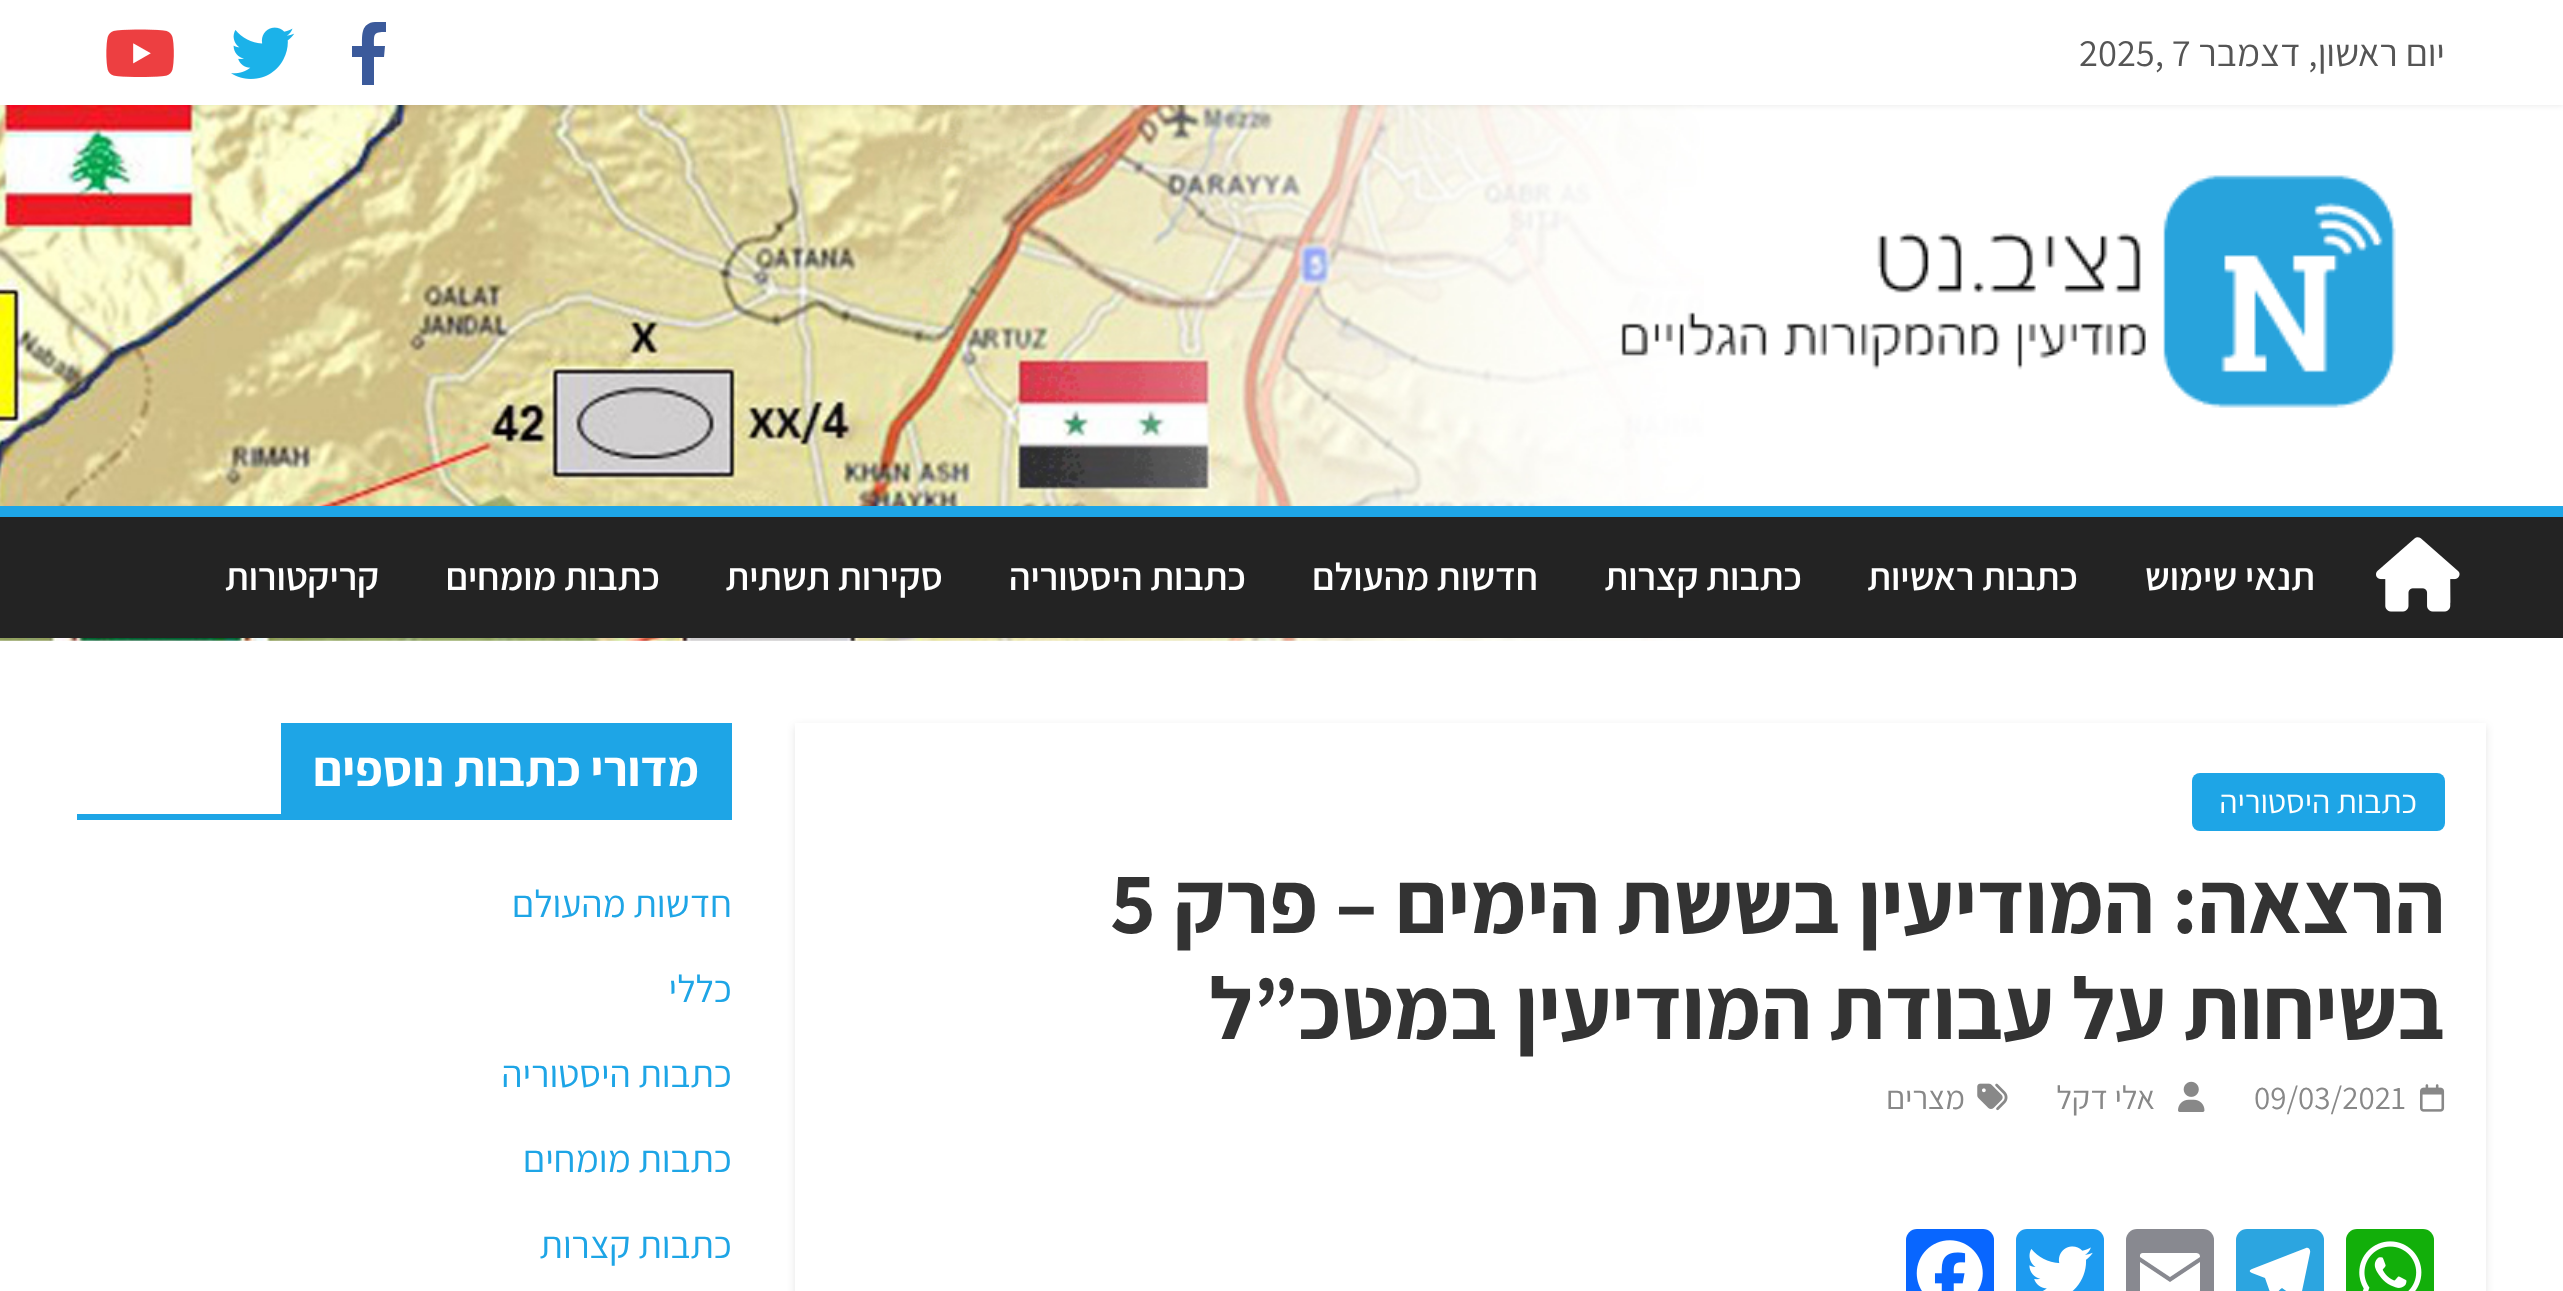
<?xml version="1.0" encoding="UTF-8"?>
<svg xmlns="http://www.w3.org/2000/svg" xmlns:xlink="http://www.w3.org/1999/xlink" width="2563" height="1291">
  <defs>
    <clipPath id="clip1"><path d="M 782 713 h 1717 v 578 h -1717 z m 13 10 h 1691 v 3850 h -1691 z" clip-rule="evenodd" /></clipPath>
  </defs>
  <rect width="100%" height="100%" fill="#ffffff" />
  <image x="0" y="105" width="1704" height="536" xlink:href="image1.png" />
  <rect width="2563" height="105" fill="#000000" fill-opacity="0.1" filter="blur(3px)" />
  <rect width="2563" height="105" fill="#ffffff" />
  <path d="M 384 57 l 1 -11 h -11 c 0 -12 -1 -14 12 -14 v -10 h -11 c -14 1 -13 13 -13 24 h -10 v 11 h 10 v 28 h 12 v -28 z" fill="#3b5a9b" />
  <image x="231" y="27" width="64" height="52" xlink:href="image2.png" />
  <image x="106" y="29" width="68" height="48" xlink:href="image3.png" />
  <image x="1621" y="175" width="775" height="233" xlink:href="image4.png" />
  <rect y="517" width="2563" height="121" fill="#232323" />
  <rect y="506" width="2563" height="11" fill="#1ea5e6" />
  <image x="2376" y="537" width="84" height="75" xlink:href="image5.png" />
  <g clip-path="url(#clip1)">
    <rect x="795" y="726" width="1691" height="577" fill="#000000" fill-opacity="0.1" filter="blur(4px)" />
  </g>
  <rect x="2192" y="773" width="253" height="58" rx="8" fill="#1ea5e6" />
  <image x="2420" y="1084" width="25" height="28" xlink:href="image6.png" />
  <image x="2178" y="1081" width="27" height="31" xlink:href="image7.png" />
  <image x="1977" y="1083" width="31" height="28" xlink:href="image8.png" />
  <rect x="2346" y="1229" width="88" height="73" rx="11" fill="#12af0a" />
  <image x="2359" y="1241" width="63" height="50" xlink:href="image9.png" />
  <rect x="2236" y="1229" width="88" height="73" rx="11" fill="#2ca5e0" />
  <path d="M 2306 1248 l -54 21 c -3 1 -3 3 0 4 l 13 5 l 6 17 c 3 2 9 -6 11 -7 l 14 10 c 2 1 4 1 5 -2 l 9 -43 c 1 -4 -2 -6 -4 -5 z" fill="#ffffff" />
  <rect x="2126" y="1229" width="88" height="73" rx="11" fill="#888990" />
  <path d="M 2200 1289 v -27 l -30 20 l -30 -20 v 27 c 0 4 0 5 4 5 h 51 c 4 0 5 -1 5 -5 m 0 -32 c 0 -3 -1 -4 -5 -4 h -51 c -4 0 -4 1 -4 4 l 30 20 z" fill="#ffffff" />
  <rect x="2016" y="1229" width="88" height="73" rx="11" fill="#1d9bf0" />
  <image x="2029" y="1246" width="64" height="45" xlink:href="image10.png" />
  <rect x="1906" y="1229" width="88" height="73" rx="11" fill="#0866ff" />
  <image x="1916" y="1240" width="67" height="51" xlink:href="image11.png" />
  <rect x="77" y="814" width="655" height="6" fill="#1ea5e6" />
  <rect x="281" y="723" width="451" height="91" fill="#1ea5e6" />
  <text x="2445" y="66" style="font-family: Assistant; font-size: 38.5px; direction: rtl; fill: #555555">יום ראשון, דצמבר</text>
  <text x="2079" y="66" style="font-family: Assistant; font-size: 38.5px; fill: #555555">2025, 7</text>
  <text x="2315" y="590" style="font-family: Assistant; font-size: 38.5px; font-weight: 600; direction: rtl; fill: #ffffff">תנאי שימוש</text>
  <text x="2078" y="590" style="font-family: Assistant; font-size: 38.5px; font-weight: 600; direction: rtl; fill: #ffffff">כתבות ראשיות</text>
  <text x="1802" y="590" style="font-family: Assistant; font-size: 38.5px; font-weight: 600; direction: rtl; fill: #ffffff">כתבות קצרות</text>
  <text x="1538" y="590" style="font-family: Assistant; font-size: 38.5px; font-weight: 600; direction: rtl; fill: #ffffff">חדשות מהעולם</text>
  <text x="1246" y="590" style="font-family: Assistant; font-size: 38.5px; font-weight: 600; direction: rtl; fill: #ffffff">כתבות היסטוריה</text>
  <text x="943" y="590" style="font-family: Assistant; font-size: 38.5px; font-weight: 600; direction: rtl; fill: #ffffff">סקירות תשתית</text>
  <text x="660" y="590" style="font-family: Assistant; font-size: 38.5px; font-weight: 600; direction: rtl; fill: #ffffff">כתבות מומחים</text>
  <text x="379" y="590" style="font-family: Assistant; font-size: 38.5px; font-weight: 600; direction: rtl; fill: #ffffff">קריקטורות</text>
  <text x="2417" y="813" style="font-family: Assistant; font-size: 33px; direction: rtl; fill: #ffffff">כתבות היסטוריה</text>
  <text x="2445" y="933" style="font-family: Assistant; font-size: 88px; font-weight: bold; direction: rtl; fill: #333333">הרצאה: המודיעין בששת הימים – פרק</text>
  <text x="1110" y="933" style="font-family: Assistant; font-size: 88px; font-weight: bold; fill: #333333">5</text>
  <text x="2445" y="1039" style="font-family: Assistant; font-size: 88px; font-weight: bold; direction: rtl; fill: #333333">בשיחות על עבודת המודיעין במטכ”ל</text>
  <text x="2254" y="1109" style="font-family: Assistant; font-size: 33px; fill: #888888">09/03/2021</text>
  <text x="2155" y="1109" style="font-family: Assistant; font-size: 33px; direction: rtl; fill: #888888">אלי דקל</text>
  <text x="1965" y="1109" style="font-family: Assistant; font-size: 33px; direction: rtl; fill: #888888">מצרים</text>
  <text x="699" y="786" style="font-family: Assistant; font-size: 49.5px; font-weight: bold; direction: rtl; fill: #ffffff">מדורי כתבות נוספים</text>
  <text x="732" y="917" style="font-family: Assistant; font-size: 38.5px; direction: rtl; fill: #1ea5e6">חדשות מהעולם</text>
  <text x="732" y="1002" style="font-family: Assistant; font-size: 38.5px; direction: rtl; fill: #1ea5e6">כללי</text>
  <text x="732" y="1087" style="font-family: Assistant; font-size: 38.5px; direction: rtl; fill: #1ea5e6">כתבות היסטוריה</text>
  <text x="732" y="1172" style="font-family: Assistant; font-size: 38.5px; direction: rtl; fill: #1ea5e6">כתבות מומחים</text>
  <text x="732" y="1258" style="font-family: Assistant; font-size: 38.5px; direction: rtl; fill: #1ea5e6">כתבות קצרות</text>
</svg>
